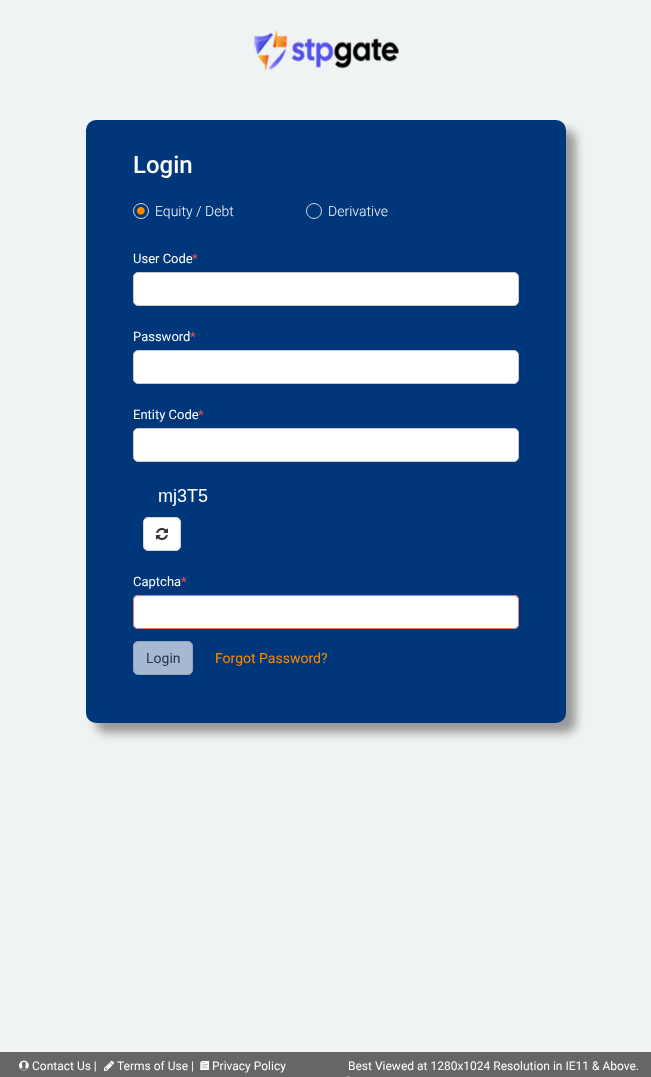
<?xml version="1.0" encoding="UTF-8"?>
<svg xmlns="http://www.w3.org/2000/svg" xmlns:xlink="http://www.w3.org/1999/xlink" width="651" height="1077">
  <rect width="100%" height="100%" fill="#f0f3f4" />
  <image x="254" y="30" width="145" height="41" xlink:href="image1.png" />
  <rect x="96" y="130" width="480" height="603" rx="10" fill="#999999" filter="blur(5px)" />
  <rect x="86" y="120" width="480" height="603" rx="10" fill="#00377b" />
  <circle cx="141" cy="211" r="7.5" fill="none" stroke="#d6d6d6" />
  <image x="137" y="206" width="8" height="9" xlink:href="image2.png" />
  <circle cx="314" cy="211" r="7.5" fill="none" stroke="#d6d6d6" />
  <rect x="133.5" y="272.5" width="385" height="33" rx="4.5" fill="#ffffff" stroke="#cbcbcb" />
  <rect x="133.5" y="350.5" width="385" height="33" rx="4.5" fill="#ffffff" stroke="#cbcbcb" />
  <rect x="133.5" y="428.5" width="385" height="33" rx="4.5" fill="#ffffff" stroke="#cbcbcb" />
  <image x="159" y="489" width="49" height="17" xlink:href="image3.png" />
  <rect x="143.5" y="517.5" width="37" height="33" rx="4.5" fill="#ffffff" stroke="#d6d6d6" />
  <image x="156" y="528" width="12" height="12" xlink:href="image4.png" />
  <rect x="133" y="595" width="386" height="34" rx="5" fill="#ffffff" />
  <path d="M 138 597 h 376 c 2 0 4 2 4 4 c 0 -3 -1 -5 -4 -5 h -376 c -3 0 -4 2 -4 5 c 0 -2 2 -4 4 -4 z" fill="#ececec" />
  <rect x="133.5" y="595.5" width="385" height="33" rx="4.5" fill="none" stroke="#ed7878" />
  <rect x="133.5" y="641.5" width="59" height="33" rx="4.5" fill="#a6b9d1" stroke="#93a6be" />
  <rect y="1052" width="651" height="25" fill="#666666" />
  <image x="19" y="1060" width="10" height="11" xlink:href="image5.png" />
  <image x="104" y="1060" width="11" height="11" xlink:href="image6.png" />
  <image x="200" y="1061" width="9" height="9" xlink:href="image7.png" />
  <image x="346" y="1076" width="4" height="1" xlink:href="image8.png" />
  <text x="133" y="173" style="font-family: Roboto; font-size: 24px; font-weight: 500; fill: #ffffff">Login</text>
  <text x="155" y="216" style="font-family: Roboto; font-size: 14px; font-weight: 300; fill: #ffffff">Equity / Debt</text>
  <text x="328" y="216" style="font-family: Roboto; font-size: 14px; font-weight: 300; fill: #ffffff">Derivative</text>
  <text x="133" y="263" style="font-family: Roboto; font-size: 13px; fill: #ffffff">User Code</text>
  <text x="192" y="263" style="font-family: Roboto; font-size: 13px; fill: #e85656">*</text>
  <text x="133" y="341" style="font-family: Roboto; font-size: 13px; fill: #ffffff">Password</text>
  <text x="190" y="341" style="font-family: Roboto; font-size: 13px; fill: #e85656">*</text>
  <text x="133" y="419" style="font-family: Roboto; font-size: 13px; fill: #ffffff">Entity Code</text>
  <text x="198" y="419" style="font-family: Roboto; font-size: 13px; fill: #e85656">*</text>
  <text x="133" y="586" style="font-family: Roboto; font-size: 13px; fill: #ffffff">Captcha</text>
  <text x="181" y="586" style="font-family: Roboto; font-size: 13px; fill: #e85656">*</text>
  <text x="146" y="663" style="font-family: Roboto; font-size: 14px; fill: #21344c">Login</text>
  <text x="215" y="663" style="font-family: Roboto; font-size: 14px; fill: #ff8a00">Forgot Password?</text>
  <text x="32" y="1070" style="font-family: Roboto; font-size: 12px; fill: #ffffff">Contact Us |</text>
  <text x="117" y="1070" style="font-family: Roboto; font-size: 12px; fill: #ffffff">Terms of Use |</text>
  <text x="212" y="1070" style="font-family: Roboto; font-size: 12px; fill: #ffffff">Privacy Policy</text>
  <text x="348" y="1070" style="font-family: Roboto; font-size: 12px; fill: #ffffff">Best Viewed at 1280x1024 Resolution in IE11 &amp; Above.</text>
</svg>
